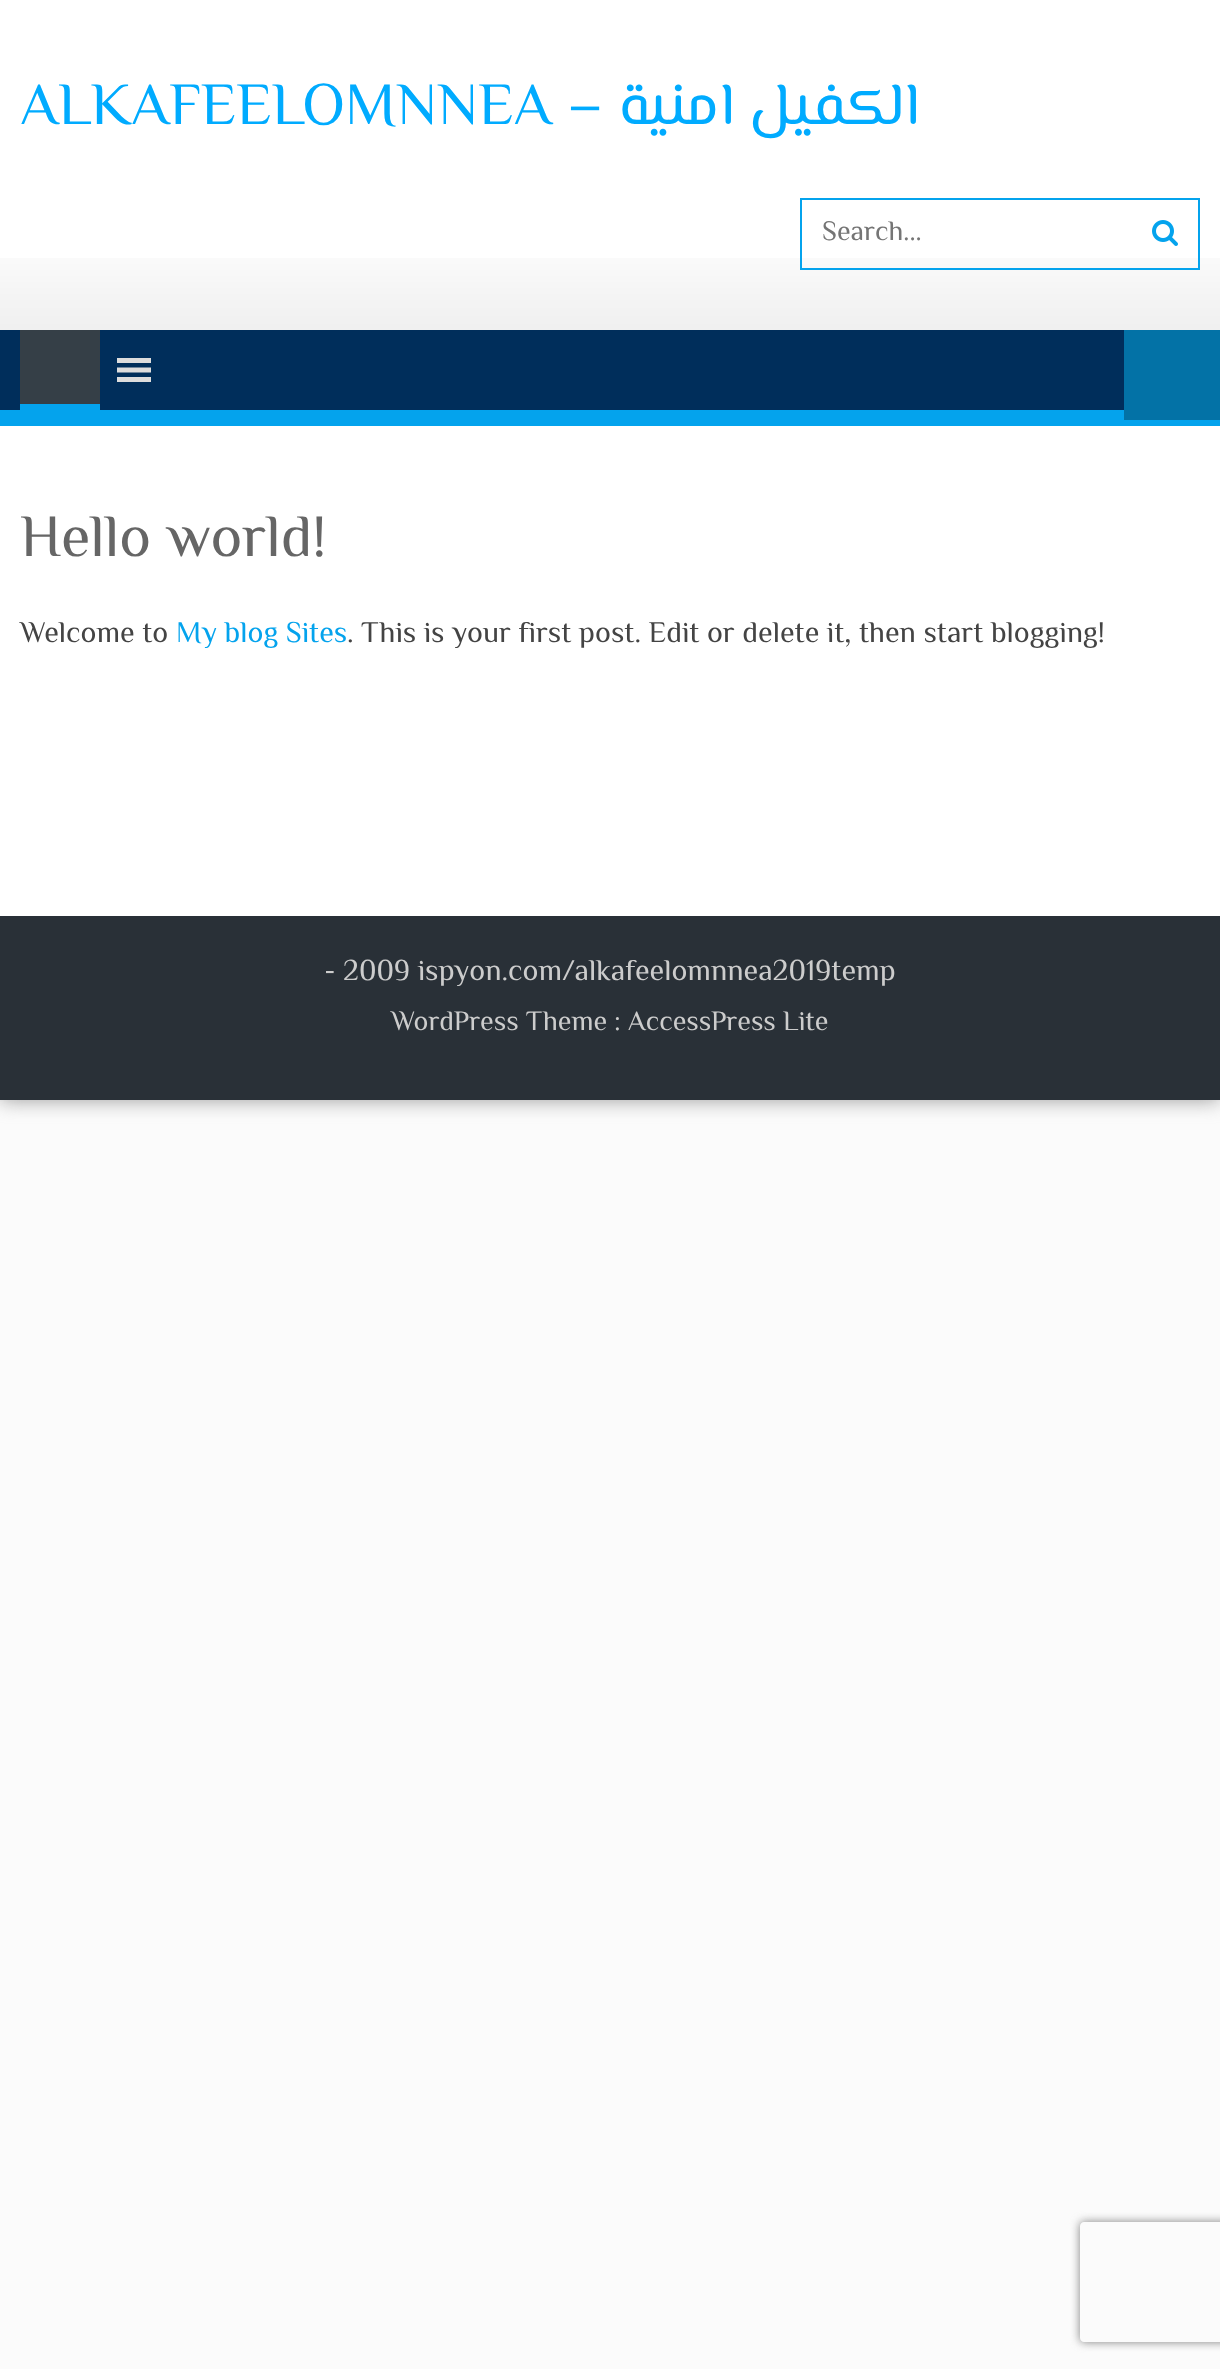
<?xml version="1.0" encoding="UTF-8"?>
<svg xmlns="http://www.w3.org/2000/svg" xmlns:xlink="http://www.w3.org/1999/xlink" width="1220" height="2369">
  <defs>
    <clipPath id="clip1"><path d="M 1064 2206 h 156 v 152 h -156 z m 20 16 h 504 c 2 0 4 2 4 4 v 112 c 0 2 -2 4 -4 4 h -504 c -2 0 -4 -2 -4 -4 v -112 c 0 -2 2 -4 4 -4 z" clip-rule="evenodd" /></clipPath>
  </defs>
  <rect width="100%" height="100%" fill="#fbfbfb" />
  <rect width="1220" height="1100" fill="#999999" filter="blur(10px)" />
  <rect width="1220" height="916" fill="#ffffff" />
  <image x="0" y="258" width="1220" height="72" xlink:href="image1.png" />
  <rect x="801" y="199" width="398" height="70" fill="none" stroke="#04a3ed" stroke-width="2" />
  <image x="1152" y="220" width="26" height="26" xlink:href="image2.png" />
  <rect y="410" width="1124" height="16" fill="#04a3ed" />
  <rect y="330" width="1124" height="80" fill="#002e5b" />
  <rect x="20" y="330" width="80" height="74" fill="#353f47" />
  <rect x="20" y="404" width="80" height="6" fill="#04a3ed" />
  <path d="M 117 382 h 34 v -5 h -34 z m 0 -24 v 5 h 34 v -5 z m 0 14.5 h 34 v -5 h -34 z" fill="#dddddd" />
  <rect x="1124" y="330" width="96" height="90" fill="#0372a6" />
  <rect x="1124" y="420" width="96" height="6" fill="#04a3ed" />
  <rect y="916" width="1220" height="184" fill="#293037" />
  <g clip-path="url(#clip1)">
    <rect x="1080" y="2222" width="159" height="120" rx="4" fill="#808080" filter="blur(5px)" />
  </g>
  <text x="20" y="124" style="font-family: El Messiri; font-size: 60px; fill: #00abff">ALKAFEELOMNNEA –</text>
  <text x="919" y="124" style="font-family: El Messiri; font-size: 60px; direction: rtl; fill: #00abff">الكفيل امنية</text>
  <text x="822" y="240" style="font-family: El Messiri; font-size: 28px; fill: #757575">Search...</text>
  <text x="20" y="556" style="font-family: El Messiri; font-size: 60px; fill: #666666">Hello world!</text>
  <text x="20" y="642" style="font-family: El Messiri; font-size: 30px; fill: #444444">Welcome to</text>
  <text x="176" y="642" style="font-family: El Messiri; font-size: 30px; fill: #04a3ed">My blog Sites</text>
  <text x="347" y="642" style="font-family: El Messiri; font-size: 30px; fill: #444444">. This is your first post. Edit or delete it, then start blogging!</text>
  <text x="324" y="980" style="font-family: El Messiri; font-size: 30px; fill: #cccccc">- 2009 ispyon.com/alkafeelomnnea2019temp</text>
  <text x="391" y="1030" style="font-family: El Messiri; font-size: 28px; fill: #cccccc">WordPress Theme : AccessPress Lite</text>
</svg>
